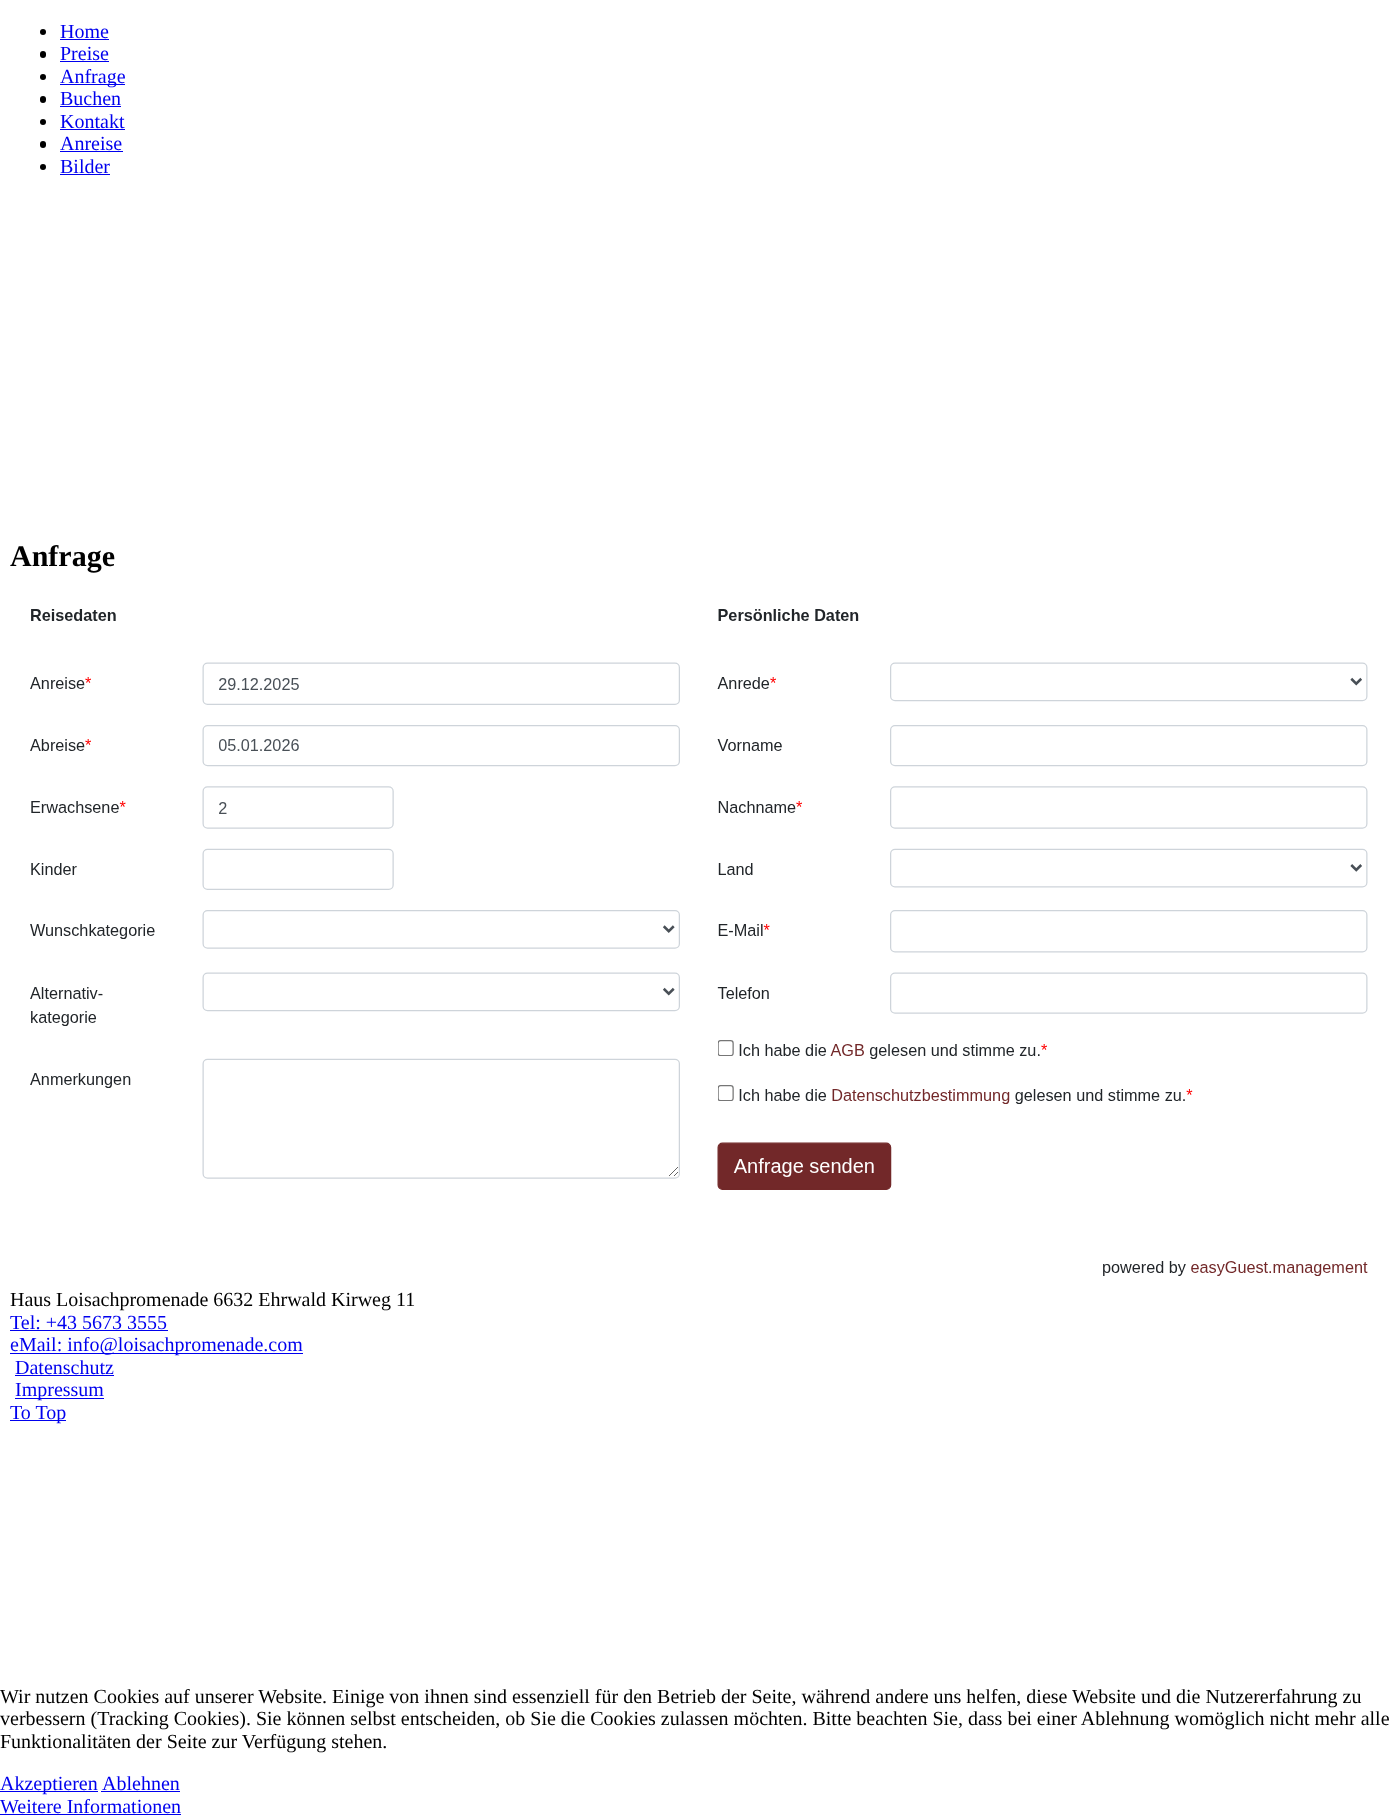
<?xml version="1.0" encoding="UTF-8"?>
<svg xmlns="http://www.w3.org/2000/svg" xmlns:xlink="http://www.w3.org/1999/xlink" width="1397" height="1817">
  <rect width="100%" height="100%" fill="#ffffff" />
  <circle cx="43" cy="32" r="3" fill="#000000" />
  <rect x="60" y="39" width="49" height="1" fill="#0000ee" />
  <rect x="40" y="51" width="6" height="7" rx="3" fill="#000000" />
  <rect x="60" y="61" width="49" height="1" fill="#0000ee" />
  <circle cx="43" cy="77" r="3" fill="#000000" />
  <rect x="60" y="84" width="65" height="1" fill="#0000ee" />
  <rect x="40" y="96" width="6" height="7" rx="3" fill="#000000" />
  <rect x="60" y="106" width="61" height="1" fill="#0000ee" />
  <circle cx="43" cy="122" r="3" fill="#000000" />
  <rect x="60" y="129" width="65" height="1" fill="#0000ee" />
  <rect x="40" y="141" width="6" height="7" rx="3" fill="#000000" />
  <rect x="60" y="151" width="63" height="1" fill="#0000ee" />
  <circle cx="43" cy="167" r="3" fill="#000000" />
  <rect x="60" y="174" width="50" height="1" fill="#0000ee" />
  <image x="30" y="609" width="1338" height="667" xlink:href="image1.png" />
  <rect x="10" y="1330" width="158" height="1" fill="#0000ee" />
  <rect x="10" y="1353" width="293" height="1" fill="#0000ee" />
  <rect x="15" y="1375" width="99" height="1" fill="#0000ee" />
  <rect x="15" y="1398" width="89" height="1" fill="#0000ee" />
  <rect x="10" y="1420" width="56" height="1" fill="#0000ee" />
  <rect y="1791" width="98" height="1" fill="#0000ee" />
  <rect x="101" y="1791" width="79" height="1" fill="#0000ee" />
  <rect y="1814" width="181" height="1" fill="#0000ee" />
  <text x="60" y="38" style="font-family: Liberation Serif; font-size: 20px; fill: #0000ee">Home</text>
  <text x="60" y="60" style="font-family: Liberation Serif; font-size: 20px; fill: #0000ee">Preise</text>
  <text x="60" y="83" style="font-family: Liberation Serif; font-size: 20px; fill: #0000ee">Anfrage</text>
  <text x="60" y="105" style="font-family: Liberation Serif; font-size: 20px; fill: #0000ee">Buchen</text>
  <text x="60" y="128" style="font-family: Liberation Serif; font-size: 20px; fill: #0000ee">Kontakt</text>
  <text x="60" y="150" style="font-family: Liberation Serif; font-size: 20px; fill: #0000ee">Anreise</text>
  <text x="60" y="173" style="font-family: Liberation Serif; font-size: 20px; fill: #0000ee">Bilder</text>
  <text x="10" y="566" style="font-family: Liberation Serif; font-size: 30px; font-weight: bold; fill: #000000">Anfrage</text>
  <text x="10" y="1306" style="font-family: Liberation Serif; font-size: 20px; fill: #000000">Haus Loisachpromenade 6632 Ehrwald Kirweg 11</text>
  <text x="10" y="1329" style="font-family: Liberation Serif; font-size: 20px; fill: #0000ee">Tel: +43 5673 3555</text>
  <text x="10" y="1351" style="font-family: Liberation Serif; font-size: 20px; fill: #0000ee">eMail: info@loisachpromenade.com</text>
  <text x="15" y="1374" style="font-family: Liberation Serif; font-size: 20px; fill: #0000ee">Datenschutz</text>
  <text x="15" y="1396" style="font-family: Liberation Serif; font-size: 20px; fill: #0000ee">Impressum</text>
  <text x="10" y="1419" style="font-family: Liberation Serif; font-size: 20px; fill: #0000ee">To Top</text>
  <text x="0" y="1703" style="font-family: Liberation Serif; font-size: 20px; fill: #000000">Wir nutzen Cookies auf unserer Website. Einige von ihnen sind essenziell für den Betrieb der Seite, während andere uns helfen, diese Website und die Nutzererfahrung zu</text>
  <text x="0" y="1725" style="font-family: Liberation Serif; font-size: 20px; fill: #000000">verbessern (Tracking Cookies). Sie können selbst entscheiden, ob Sie die Cookies zulassen möchten. Bitte beachten Sie, dass bei einer Ablehnung womöglich nicht mehr alle</text>
  <text x="0" y="1748" style="font-family: Liberation Serif; font-size: 20px; fill: #000000">Funktionalitäten der Seite zur Verfügung stehen.</text>
  <text x="0" y="1790" style="font-family: Liberation Serif; font-size: 20px; fill: #0000ee">Akzeptieren</text>
  <text x="102" y="1790" style="font-family: Liberation Serif; font-size: 20px; fill: #0000ee">Ablehnen</text>
  <text x="0" y="1813" style="font-family: Liberation Serif; font-size: 20px; fill: #0000ee">Weitere Informationen</text>
</svg>
